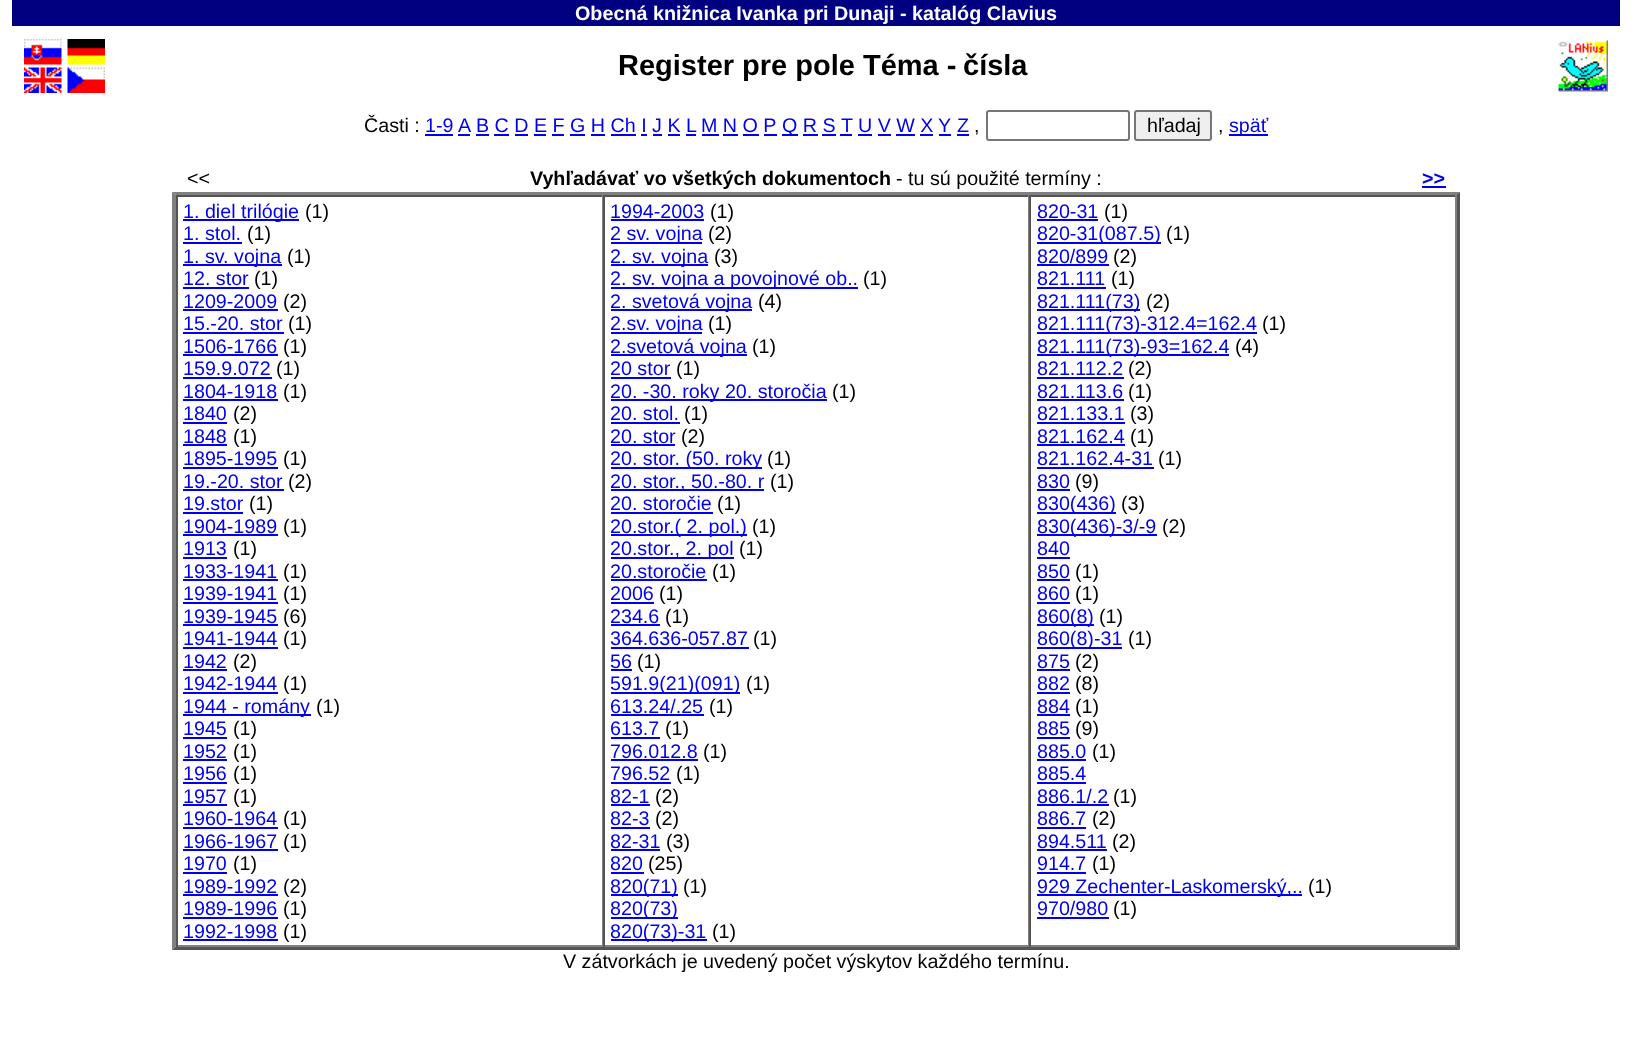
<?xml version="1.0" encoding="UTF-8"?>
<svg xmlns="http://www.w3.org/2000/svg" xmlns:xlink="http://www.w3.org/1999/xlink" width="1631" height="1047">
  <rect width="100%" height="100%" fill="#ffffff" />
  <rect x="12" width="1608" height="26" fill="#000080" />
  <image x="24" y="39" width="38" height="26" xlink:href="image1.png" />
  <image x="24" y="67" width="38" height="26" xlink:href="image2.png" />
  <image x="67" y="39" width="38" height="26" xlink:href="image3.png" />
  <image x="67" y="67" width="38" height="26" xlink:href="image4.png" />
  <image x="1558" y="40" width="50" height="52" xlink:href="image5.png" />
  <rect x="425" y="134" width="28" height="2" fill="#0000ee" />
  <rect x="458" y="134" width="12" height="2" fill="#0000ee" />
  <rect x="476" y="134" width="13" height="2" fill="#0000ee" />
  <rect x="702" y="134" width="17" height="2" fill="#0000ee" />
  <rect x="782" y="134" width="16" height="2" fill="#0000ee" />
  <rect x="840" y="134" width="12" height="2" fill="#0000ee" />
  <rect x="858" y="134" width="14" height="2" fill="#0000ee" />
  <rect x="939" y="134" width="12" height="2" fill="#0000ee" />
  <rect x="957" y="134" width="12" height="2" fill="#0000ee" />
  <rect x="494" y="134" width="15" height="2" fill="#0000ee" />
  <rect x="515" y="134" width="13" height="2" fill="#0000ee" />
  <rect x="534" y="134" width="12" height="2" fill="#0000ee" />
  <rect x="552" y="134" width="12" height="2" fill="#0000ee" />
  <rect x="570" y="134" width="15" height="2" fill="#0000ee" />
  <rect x="591" y="134" width="14" height="2" fill="#0000ee" />
  <rect x="611" y="134" width="25" height="2" fill="#0000ee" />
  <rect x="641" y="134" width="6" height="2" fill="#0000ee" />
  <rect x="653" y="134" width="9" height="2" fill="#0000ee" />
  <rect x="668" y="134" width="12" height="2" fill="#0000ee" />
  <rect x="686" y="134" width="10" height="2" fill="#0000ee" />
  <rect x="723" y="134" width="15" height="2" fill="#0000ee" />
  <rect x="743" y="134" width="16" height="2" fill="#0000ee" />
  <rect x="764" y="134" width="13" height="2" fill="#0000ee" />
  <rect x="803" y="134" width="15" height="2" fill="#0000ee" />
  <rect x="822" y="134" width="14" height="2" fill="#0000ee" />
  <rect x="878" y="134" width="13" height="2" fill="#0000ee" />
  <rect x="896" y="134" width="19" height="2" fill="#0000ee" />
  <rect x="920" y="134" width="13" height="2" fill="#0000ee" />
  <rect x="987" y="111" width="142" height="29" rx="2" fill="none" stroke="#767676" stroke-width="2" />
  <rect x="1135" y="111" width="76" height="29" rx="2" fill="#efefef" stroke="#767676" stroke-width="2" />
  <rect x="1229" y="134" width="39" height="2" fill="#0000ee" />
  <rect x="1422" y="186" width="24" height="2" fill="#0000ee" />
  <path d="M 172 192 h 1288 l -4 3 h -1280 z" fill="#808080" />
  <path d="M 1460 192 v 758 l -4 -4 v -751 z" fill="#555555" />
  <path d="M 1460 950 h -1288 l 4 -4 h 1280 z" fill="#555555" />
  <path d="M 172 950 v -758 l 4 3 v 751 z" fill="#808080" />
  <rect x="176" y="195" width="1281" height="2" fill="#555555" />
  <rect x="602" y="195" width="1" height="752" fill="#808080" />
  <rect x="176" y="945" width="427" height="2" fill="#808080" />
  <rect x="176" y="195" width="2" height="752" fill="#555555" />
  <rect x="183" y="219" width="116" height="2" fill="#0000ee" />
  <rect x="183" y="242" width="59" height="2" fill="#0000ee" />
  <rect x="183" y="264" width="99" height="2" fill="#0000ee" />
  <rect x="183" y="287" width="66" height="2" fill="#0000ee" />
  <rect x="183" y="309" width="95" height="2" fill="#0000ee" />
  <rect x="183" y="332" width="101" height="2" fill="#0000ee" />
  <rect x="183" y="354" width="95" height="2" fill="#0000ee" />
  <rect x="183" y="377" width="89" height="2" fill="#0000ee" />
  <rect x="183" y="399" width="95" height="2" fill="#0000ee" />
  <rect x="183" y="422" width="44" height="2" fill="#0000ee" />
  <rect x="183" y="444" width="44" height="2" fill="#0000ee" />
  <rect x="183" y="467" width="95" height="2" fill="#0000ee" />
  <rect x="183" y="489" width="101" height="2" fill="#0000ee" />
  <rect x="183" y="512" width="60" height="2" fill="#0000ee" />
  <rect x="183" y="534" width="95" height="2" fill="#0000ee" />
  <rect x="183" y="557" width="44" height="2" fill="#0000ee" />
  <rect x="183" y="579" width="95" height="2" fill="#0000ee" />
  <rect x="183" y="602" width="95" height="2" fill="#0000ee" />
  <rect x="183" y="624" width="95" height="2" fill="#0000ee" />
  <rect x="183" y="647" width="95" height="2" fill="#0000ee" />
  <rect x="183" y="669" width="44" height="2" fill="#0000ee" />
  <rect x="183" y="692" width="95" height="2" fill="#0000ee" />
  <rect x="183" y="714" width="128" height="2" fill="#0000ee" />
  <rect x="183" y="737" width="44" height="2" fill="#0000ee" />
  <rect x="183" y="759" width="44" height="2" fill="#0000ee" />
  <rect x="183" y="782" width="44" height="2" fill="#0000ee" />
  <rect x="183" y="804" width="44" height="2" fill="#0000ee" />
  <rect x="183" y="827" width="95" height="2" fill="#0000ee" />
  <rect x="183" y="849" width="95" height="2" fill="#0000ee" />
  <rect x="183" y="872" width="44" height="2" fill="#0000ee" />
  <rect x="183" y="894" width="95" height="2" fill="#0000ee" />
  <rect x="183" y="917" width="95" height="2" fill="#0000ee" />
  <rect x="183" y="939" width="95" height="2" fill="#0000ee" />
  <rect x="1028" y="195" width="1" height="752" fill="#808080" />
  <rect x="603" y="945" width="426" height="2" fill="#808080" />
  <rect x="603" y="195" width="2" height="752" fill="#555555" />
  <rect x="611" y="219" width="93" height="2" fill="#0000ee" />
  <rect x="611" y="242" width="91" height="2" fill="#0000ee" />
  <rect x="611" y="264" width="97" height="2" fill="#0000ee" />
  <rect x="611" y="287" width="247" height="2" fill="#0000ee" />
  <rect x="611" y="309" width="141" height="2" fill="#0000ee" />
  <rect x="611" y="332" width="91" height="2" fill="#0000ee" />
  <rect x="611" y="354" width="136" height="2" fill="#0000ee" />
  <rect x="611" y="377" width="60" height="2" fill="#0000ee" />
  <rect x="611" y="399" width="216" height="2" fill="#0000ee" />
  <rect x="611" y="422" width="69" height="2" fill="#0000ee" />
  <rect x="611" y="444" width="64" height="2" fill="#0000ee" />
  <rect x="611" y="467" width="151" height="2" fill="#0000ee" />
  <rect x="611" y="489" width="153" height="2" fill="#0000ee" />
  <rect x="611" y="512" width="102" height="2" fill="#0000ee" />
  <rect x="611" y="534" width="136" height="2" fill="#0000ee" />
  <rect x="611" y="557" width="123" height="2" fill="#0000ee" />
  <rect x="611" y="579" width="96" height="2" fill="#0000ee" />
  <rect x="611" y="602" width="43" height="2" fill="#0000ee" />
  <rect x="611" y="624" width="49" height="2" fill="#0000ee" />
  <rect x="611" y="647" width="138" height="2" fill="#0000ee" />
  <rect x="611" y="669" width="21" height="2" fill="#0000ee" />
  <rect x="611" y="692" width="129" height="2" fill="#0000ee" />
  <rect x="611" y="714" width="93" height="2" fill="#0000ee" />
  <rect x="611" y="737" width="49" height="2" fill="#0000ee" />
  <rect x="611" y="759" width="87" height="2" fill="#0000ee" />
  <rect x="611" y="782" width="60" height="2" fill="#0000ee" />
  <rect x="611" y="804" width="39" height="2" fill="#0000ee" />
  <rect x="611" y="827" width="39" height="2" fill="#0000ee" />
  <rect x="611" y="849" width="49" height="2" fill="#0000ee" />
  <rect x="611" y="872" width="33" height="2" fill="#0000ee" />
  <rect x="611" y="894" width="67" height="2" fill="#0000ee" />
  <rect x="611" y="917" width="67" height="2" fill="#0000ee" />
  <rect x="611" y="939" width="96" height="2" fill="#0000ee" />
  <rect x="1455" y="195" width="2" height="752" fill="#808080" />
  <rect x="1029" y="945" width="428" height="2" fill="#808080" />
  <rect x="1029" y="195" width="2" height="752" fill="#555555" />
  <rect x="1037" y="219" width="61" height="2" fill="#0000ee" />
  <rect x="1037" y="242" width="124" height="2" fill="#0000ee" />
  <rect x="1037" y="264" width="72" height="2" fill="#0000ee" />
  <rect x="1037" y="287" width="69" height="2" fill="#0000ee" />
  <rect x="1037" y="309" width="103" height="2" fill="#0000ee" />
  <rect x="1037" y="332" width="220" height="2" fill="#0000ee" />
  <rect x="1037" y="354" width="192" height="2" fill="#0000ee" />
  <rect x="1037" y="377" width="87" height="2" fill="#0000ee" />
  <rect x="1037" y="399" width="87" height="2" fill="#0000ee" />
  <rect x="1037" y="422" width="88" height="2" fill="#0000ee" />
  <rect x="1037" y="444" width="88" height="2" fill="#0000ee" />
  <rect x="1037" y="467" width="117" height="2" fill="#0000ee" />
  <rect x="1037" y="489" width="33" height="2" fill="#0000ee" />
  <rect x="1037" y="512" width="79" height="2" fill="#0000ee" />
  <rect x="1037" y="534" width="120" height="2" fill="#0000ee" />
  <rect x="1037" y="557" width="33" height="2" fill="#0000ee" />
  <rect x="1037" y="579" width="33" height="2" fill="#0000ee" />
  <rect x="1037" y="602" width="33" height="2" fill="#0000ee" />
  <rect x="1037" y="624" width="57" height="2" fill="#0000ee" />
  <rect x="1037" y="647" width="85" height="2" fill="#0000ee" />
  <rect x="1037" y="669" width="33" height="2" fill="#0000ee" />
  <rect x="1037" y="692" width="33" height="2" fill="#0000ee" />
  <rect x="1037" y="714" width="33" height="2" fill="#0000ee" />
  <rect x="1037" y="737" width="33" height="2" fill="#0000ee" />
  <rect x="1037" y="759" width="49" height="2" fill="#0000ee" />
  <rect x="1037" y="782" width="49" height="2" fill="#0000ee" />
  <rect x="1037" y="804" width="72" height="2" fill="#0000ee" />
  <rect x="1037" y="827" width="49" height="2" fill="#0000ee" />
  <rect x="1037" y="849" width="70" height="2" fill="#0000ee" />
  <rect x="1037" y="872" width="49" height="2" fill="#0000ee" />
  <rect x="1037" y="894" width="265" height="2" fill="#0000ee" />
  <rect x="1037" y="917" width="72" height="2" fill="#0000ee" />
  <text x="575" y="20" style="font-family: Liberation Sans; font-size: 19.75px; font-weight: bold; fill: #ffffff">Obecná knižnica Ivanka pri Dunaji</text>
  <text x="900" y="20" style="font-family: Liberation Sans; font-size: 19.75px; font-weight: bold; fill: #ffffff">- katalóg Clavius</text>
  <text x="618" y="75" style="font-family: Liberation Sans; font-size: 29px; font-weight: bold; fill: #000000">Register pre pole Téma -</text>
  <text x="963" y="75" style="font-family: Liberation Sans; font-size: 29px; font-weight: bold; fill: #000000">čísla</text>
  <text x="364" y="132" style="font-family: Liberation Sans; font-size: 19.7px; fill: #000000">Časti :</text>
  <text x="425" y="132" style="font-family: Liberation Sans; font-size: 19.7px; fill: #0000ee">1-9</text>
  <text x="458" y="132" style="font-family: Liberation Sans; font-size: 19.7px; fill: #0000ee">A</text>
  <text x="476" y="132" style="font-family: Liberation Sans; font-size: 19.7px; fill: #0000ee">B C D E F G H Ch I J K L</text>
  <text x="701" y="132" style="font-family: Liberation Sans; font-size: 19.7px; fill: #0000ee">M N O P</text>
  <text x="782" y="132" style="font-family: Liberation Sans; font-size: 19.7px; fill: #0000ee">Q R S</text>
  <text x="841" y="132" style="font-family: Liberation Sans; font-size: 19.7px; fill: #0000ee">T</text>
  <text x="858" y="132" style="font-family: Liberation Sans; font-size: 19.7px; fill: #0000ee">U V W X</text>
  <text x="938" y="132" style="font-family: Liberation Sans; font-size: 19.7px; fill: #0000ee">Y</text>
  <text x="957" y="132" style="font-family: Liberation Sans; font-size: 19.7px; fill: #0000ee">Z</text>
  <text x="974" y="132" style="font-family: Liberation Sans; font-size: 19.7px; fill: #000000">,</text>
  <text x="1147" y="132" style="font-family: Liberation Sans; font-size: 19.7px; fill: #000000">hľadaj</text>
  <text x="1218" y="132" style="font-family: Liberation Sans; font-size: 19.7px; fill: #000000">,</text>
  <text x="1229" y="132" style="font-family: Liberation Sans; font-size: 19.7px; fill: #0000ee">späť</text>
  <text x="187" y="185" style="font-family: Liberation Sans; font-size: 19.7px; fill: #000000">&lt;&lt;</text>
  <text x="530" y="185" style="font-family: Liberation Sans; font-size: 19.7px; font-weight: bold; fill: #000000">Vyhľadávať vo všetkých dokumentoch</text>
  <text x="896" y="185" style="font-family: Liberation Sans; font-size: 19.7px; fill: #000000">- tu sú použité termíny :</text>
  <text x="1422" y="185" style="font-family: Liberation Sans; font-size: 19.7px; font-weight: bold; fill: #0000ee">&gt;&gt;</text>
  <text x="183" y="218" style="font-family: Liberation Sans; font-size: 19.7px; fill: #0000ee">1. diel trilógie</text>
  <text x="305" y="218" style="font-family: Liberation Sans; font-size: 19.7px; fill: #000000">(1)</text>
  <text x="183" y="240" style="font-family: Liberation Sans; font-size: 19.7px; fill: #0000ee">1. stol.</text>
  <text x="247" y="240" style="font-family: Liberation Sans; font-size: 19.7px; fill: #000000">(1)</text>
  <text x="183" y="263" style="font-family: Liberation Sans; font-size: 19.7px; fill: #0000ee">1. sv. vojna</text>
  <text x="287" y="263" style="font-family: Liberation Sans; font-size: 19.7px; fill: #000000">(1)</text>
  <text x="183" y="285" style="font-family: Liberation Sans; font-size: 19.7px; fill: #0000ee">12. stor</text>
  <text x="254" y="285" style="font-family: Liberation Sans; font-size: 19.7px; fill: #000000">(1)</text>
  <text x="183" y="308" style="font-family: Liberation Sans; font-size: 19.7px; fill: #0000ee">1209-2009</text>
  <text x="283" y="308" style="font-family: Liberation Sans; font-size: 19.7px; fill: #000000">(2)</text>
  <text x="183" y="330" style="font-family: Liberation Sans; font-size: 19.7px; fill: #0000ee">15.-20. stor</text>
  <text x="288" y="330" style="font-family: Liberation Sans; font-size: 19.7px; fill: #000000">(1)</text>
  <text x="183" y="353" style="font-family: Liberation Sans; font-size: 19.7px; fill: #0000ee">1506-1766</text>
  <text x="283" y="353" style="font-family: Liberation Sans; font-size: 19.7px; fill: #000000">(1)</text>
  <text x="183" y="375" style="font-family: Liberation Sans; font-size: 19.7px; fill: #0000ee">159.9.072</text>
  <text x="276" y="375" style="font-family: Liberation Sans; font-size: 19.7px; fill: #000000">(1)</text>
  <text x="183" y="398" style="font-family: Liberation Sans; font-size: 19.7px; fill: #0000ee">1804-1918</text>
  <text x="283" y="398" style="font-family: Liberation Sans; font-size: 19.7px; fill: #000000">(1)</text>
  <text x="183" y="420" style="font-family: Liberation Sans; font-size: 19.7px; fill: #0000ee">1840</text>
  <text x="233" y="420" style="font-family: Liberation Sans; font-size: 19.7px; fill: #000000">(2)</text>
  <text x="183" y="443" style="font-family: Liberation Sans; font-size: 19.7px; fill: #0000ee">1848</text>
  <text x="233" y="443" style="font-family: Liberation Sans; font-size: 19.7px; fill: #000000">(1)</text>
  <text x="183" y="465" style="font-family: Liberation Sans; font-size: 19.7px; fill: #0000ee">1895-1995</text>
  <text x="283" y="465" style="font-family: Liberation Sans; font-size: 19.7px; fill: #000000">(1)</text>
  <text x="183" y="488" style="font-family: Liberation Sans; font-size: 19.7px; fill: #0000ee">19.-20. stor</text>
  <text x="288" y="488" style="font-family: Liberation Sans; font-size: 19.7px; fill: #000000">(2)</text>
  <text x="183" y="510" style="font-family: Liberation Sans; font-size: 19.7px; fill: #0000ee">19.stor</text>
  <text x="249" y="510" style="font-family: Liberation Sans; font-size: 19.7px; fill: #000000">(1)</text>
  <text x="183" y="533" style="font-family: Liberation Sans; font-size: 19.7px; fill: #0000ee">1904-1989</text>
  <text x="283" y="533" style="font-family: Liberation Sans; font-size: 19.7px; fill: #000000">(1)</text>
  <text x="183" y="555" style="font-family: Liberation Sans; font-size: 19.7px; fill: #0000ee">1913</text>
  <text x="233" y="555" style="font-family: Liberation Sans; font-size: 19.7px; fill: #000000">(1)</text>
  <text x="183" y="578" style="font-family: Liberation Sans; font-size: 19.7px; fill: #0000ee">1933-1941</text>
  <text x="283" y="578" style="font-family: Liberation Sans; font-size: 19.7px; fill: #000000">(1)</text>
  <text x="183" y="600" style="font-family: Liberation Sans; font-size: 19.7px; fill: #0000ee">1939-1941</text>
  <text x="283" y="600" style="font-family: Liberation Sans; font-size: 19.7px; fill: #000000">(1)</text>
  <text x="183" y="623" style="font-family: Liberation Sans; font-size: 19.7px; fill: #0000ee">1939-1945</text>
  <text x="283" y="623" style="font-family: Liberation Sans; font-size: 19.7px; fill: #000000">(6)</text>
  <text x="183" y="645" style="font-family: Liberation Sans; font-size: 19.7px; fill: #0000ee">1941-1944</text>
  <text x="283" y="645" style="font-family: Liberation Sans; font-size: 19.7px; fill: #000000">(1)</text>
  <text x="183" y="668" style="font-family: Liberation Sans; font-size: 19.7px; fill: #0000ee">1942</text>
  <text x="233" y="668" style="font-family: Liberation Sans; font-size: 19.7px; fill: #000000">(2)</text>
  <text x="183" y="690" style="font-family: Liberation Sans; font-size: 19.7px; fill: #0000ee">1942-1944</text>
  <text x="283" y="690" style="font-family: Liberation Sans; font-size: 19.7px; fill: #000000">(1)</text>
  <text x="183" y="713" style="font-family: Liberation Sans; font-size: 19.7px; fill: #0000ee">1944 - romány</text>
  <text x="316" y="713" style="font-family: Liberation Sans; font-size: 19.7px; fill: #000000">(1)</text>
  <text x="183" y="735" style="font-family: Liberation Sans; font-size: 19.7px; fill: #0000ee">1945</text>
  <text x="233" y="735" style="font-family: Liberation Sans; font-size: 19.7px; fill: #000000">(1)</text>
  <text x="183" y="758" style="font-family: Liberation Sans; font-size: 19.7px; fill: #0000ee">1952</text>
  <text x="233" y="758" style="font-family: Liberation Sans; font-size: 19.7px; fill: #000000">(1)</text>
  <text x="183" y="780" style="font-family: Liberation Sans; font-size: 19.7px; fill: #0000ee">1956</text>
  <text x="233" y="780" style="font-family: Liberation Sans; font-size: 19.7px; fill: #000000">(1)</text>
  <text x="183" y="803" style="font-family: Liberation Sans; font-size: 19.7px; fill: #0000ee">1957</text>
  <text x="233" y="803" style="font-family: Liberation Sans; font-size: 19.7px; fill: #000000">(1)</text>
  <text x="183" y="825" style="font-family: Liberation Sans; font-size: 19.7px; fill: #0000ee">1960-1964</text>
  <text x="283" y="825" style="font-family: Liberation Sans; font-size: 19.7px; fill: #000000">(1)</text>
  <text x="183" y="848" style="font-family: Liberation Sans; font-size: 19.7px; fill: #0000ee">1966-1967</text>
  <text x="283" y="848" style="font-family: Liberation Sans; font-size: 19.7px; fill: #000000">(1)</text>
  <text x="183" y="870" style="font-family: Liberation Sans; font-size: 19.7px; fill: #0000ee">1970</text>
  <text x="233" y="870" style="font-family: Liberation Sans; font-size: 19.7px; fill: #000000">(1)</text>
  <text x="183" y="893" style="font-family: Liberation Sans; font-size: 19.7px; fill: #0000ee">1989-1992</text>
  <text x="283" y="893" style="font-family: Liberation Sans; font-size: 19.7px; fill: #000000">(2)</text>
  <text x="183" y="915" style="font-family: Liberation Sans; font-size: 19.7px; fill: #0000ee">1989-1996</text>
  <text x="283" y="915" style="font-family: Liberation Sans; font-size: 19.7px; fill: #000000">(1)</text>
  <text x="183" y="938" style="font-family: Liberation Sans; font-size: 19.7px; fill: #0000ee">1992-1998</text>
  <text x="283" y="938" style="font-family: Liberation Sans; font-size: 19.7px; fill: #000000">(1)</text>
  <text x="610" y="218" style="font-family: Liberation Sans; font-size: 19.7px; fill: #0000ee">1994-2003</text>
  <text x="710" y="218" style="font-family: Liberation Sans; font-size: 19.7px; fill: #000000">(1)</text>
  <text x="610" y="240" style="font-family: Liberation Sans; font-size: 19.7px; fill: #0000ee">2 sv. vojna</text>
  <text x="708" y="240" style="font-family: Liberation Sans; font-size: 19.7px; fill: #000000">(2)</text>
  <text x="610" y="263" style="font-family: Liberation Sans; font-size: 19.7px; fill: #0000ee">2. sv. vojna</text>
  <text x="714" y="263" style="font-family: Liberation Sans; font-size: 19.7px; fill: #000000">(3)</text>
  <text x="610" y="285" style="font-family: Liberation Sans; font-size: 19.7px; fill: #0000ee">2. sv. vojna a povojnové ob..</text>
  <text x="863" y="285" style="font-family: Liberation Sans; font-size: 19.7px; fill: #000000">(1)</text>
  <text x="610" y="308" style="font-family: Liberation Sans; font-size: 19.7px; fill: #0000ee">2. svetová vojna</text>
  <text x="758" y="308" style="font-family: Liberation Sans; font-size: 19.7px; fill: #000000">(4)</text>
  <text x="610" y="330" style="font-family: Liberation Sans; font-size: 19.7px; fill: #0000ee">2.sv. vojna</text>
  <text x="708" y="330" style="font-family: Liberation Sans; font-size: 19.7px; fill: #000000">(1)</text>
  <text x="610" y="353" style="font-family: Liberation Sans; font-size: 19.7px; fill: #0000ee">2.svetová vojna</text>
  <text x="752" y="353" style="font-family: Liberation Sans; font-size: 19.7px; fill: #000000">(1)</text>
  <text x="610" y="375" style="font-family: Liberation Sans; font-size: 19.7px; fill: #0000ee">20 stor</text>
  <text x="676" y="375" style="font-family: Liberation Sans; font-size: 19.7px; fill: #000000">(1)</text>
  <text x="610" y="398" style="font-family: Liberation Sans; font-size: 19.7px; fill: #0000ee">20. -30. roky 20. storočia</text>
  <text x="832" y="398" style="font-family: Liberation Sans; font-size: 19.7px; fill: #000000">(1)</text>
  <text x="610" y="420" style="font-family: Liberation Sans; font-size: 19.7px; fill: #0000ee">20. stol.</text>
  <text x="684" y="420" style="font-family: Liberation Sans; font-size: 19.7px; fill: #000000">(1)</text>
  <text x="610" y="443" style="font-family: Liberation Sans; font-size: 19.7px; fill: #0000ee">20. stor</text>
  <text x="681" y="443" style="font-family: Liberation Sans; font-size: 19.7px; fill: #000000">(2)</text>
  <text x="610" y="465" style="font-family: Liberation Sans; font-size: 19.7px; fill: #0000ee">20. stor. (50. roky</text>
  <text x="767" y="465" style="font-family: Liberation Sans; font-size: 19.7px; fill: #000000">(1)</text>
  <text x="610" y="488" style="font-family: Liberation Sans; font-size: 19.7px; fill: #0000ee">20. stor., 50.-80. r</text>
  <text x="770" y="488" style="font-family: Liberation Sans; font-size: 19.7px; fill: #000000">(1)</text>
  <text x="610" y="510" style="font-family: Liberation Sans; font-size: 19.7px; fill: #0000ee">20. storočie</text>
  <text x="717" y="510" style="font-family: Liberation Sans; font-size: 19.7px; fill: #000000">(1)</text>
  <text x="610" y="533" style="font-family: Liberation Sans; font-size: 19.7px; fill: #0000ee">20.stor.( 2. pol.)</text>
  <text x="752" y="533" style="font-family: Liberation Sans; font-size: 19.7px; fill: #000000">(1)</text>
  <text x="610" y="555" style="font-family: Liberation Sans; font-size: 19.7px; fill: #0000ee">20.stor., 2. pol</text>
  <text x="739" y="555" style="font-family: Liberation Sans; font-size: 19.7px; fill: #000000">(1)</text>
  <text x="610" y="578" style="font-family: Liberation Sans; font-size: 19.7px; fill: #0000ee">20.storočie</text>
  <text x="712" y="578" style="font-family: Liberation Sans; font-size: 19.7px; fill: #000000">(1)</text>
  <text x="610" y="600" style="font-family: Liberation Sans; font-size: 19.7px; fill: #0000ee">2006</text>
  <text x="659" y="600" style="font-family: Liberation Sans; font-size: 19.7px; fill: #000000">(1)</text>
  <text x="610" y="623" style="font-family: Liberation Sans; font-size: 19.7px; fill: #0000ee">234.6</text>
  <text x="665" y="623" style="font-family: Liberation Sans; font-size: 19.7px; fill: #000000">(1)</text>
  <text x="610" y="645" style="font-family: Liberation Sans; font-size: 19.7px; fill: #0000ee">364.636-057.87</text>
  <text x="753" y="645" style="font-family: Liberation Sans; font-size: 19.7px; fill: #000000">(1)</text>
  <text x="610" y="668" style="font-family: Liberation Sans; font-size: 19.7px; fill: #0000ee">56</text>
  <text x="637" y="668" style="font-family: Liberation Sans; font-size: 19.7px; fill: #000000">(1)</text>
  <text x="610" y="690" style="font-family: Liberation Sans; font-size: 19.7px; fill: #0000ee">591.9(21)(091)</text>
  <text x="746" y="690" style="font-family: Liberation Sans; font-size: 19.7px; fill: #000000">(1)</text>
  <text x="610" y="713" style="font-family: Liberation Sans; font-size: 19.7px; fill: #0000ee">613.24/.25</text>
  <text x="709" y="713" style="font-family: Liberation Sans; font-size: 19.7px; fill: #000000">(1)</text>
  <text x="610" y="735" style="font-family: Liberation Sans; font-size: 19.7px; fill: #0000ee">613.7</text>
  <text x="665" y="735" style="font-family: Liberation Sans; font-size: 19.7px; fill: #000000">(1)</text>
  <text x="610" y="758" style="font-family: Liberation Sans; font-size: 19.7px; fill: #0000ee">796.012.8</text>
  <text x="703" y="758" style="font-family: Liberation Sans; font-size: 19.7px; fill: #000000">(1)</text>
  <text x="610" y="780" style="font-family: Liberation Sans; font-size: 19.7px; fill: #0000ee">796.52</text>
  <text x="676" y="780" style="font-family: Liberation Sans; font-size: 19.7px; fill: #000000">(1)</text>
  <text x="610" y="803" style="font-family: Liberation Sans; font-size: 19.7px; fill: #0000ee">82-1</text>
  <text x="655" y="803" style="font-family: Liberation Sans; font-size: 19.7px; fill: #000000">(2)</text>
  <text x="610" y="825" style="font-family: Liberation Sans; font-size: 19.7px; fill: #0000ee">82-3</text>
  <text x="655" y="825" style="font-family: Liberation Sans; font-size: 19.7px; fill: #000000">(2)</text>
  <text x="610" y="848" style="font-family: Liberation Sans; font-size: 19.7px; fill: #0000ee">82-31</text>
  <text x="666" y="848" style="font-family: Liberation Sans; font-size: 19.7px; fill: #000000">(3)</text>
  <text x="610" y="870" style="font-family: Liberation Sans; font-size: 19.7px; fill: #0000ee">820</text>
  <text x="648" y="870" style="font-family: Liberation Sans; font-size: 19.7px; fill: #000000">(25)</text>
  <text x="610" y="893" style="font-family: Liberation Sans; font-size: 19.7px; fill: #0000ee">820(71)</text>
  <text x="683" y="893" style="font-family: Liberation Sans; font-size: 19.7px; fill: #000000">(1)</text>
  <text x="610" y="915" style="font-family: Liberation Sans; font-size: 19.7px; fill: #0000ee">820(73)</text>
  <text x="610" y="938" style="font-family: Liberation Sans; font-size: 19.7px; fill: #0000ee">820(73)-31</text>
  <text x="712" y="938" style="font-family: Liberation Sans; font-size: 19.7px; fill: #000000">(1)</text>
  <text x="1037" y="218" style="font-family: Liberation Sans; font-size: 19.7px; fill: #0000ee">820-31</text>
  <text x="1104" y="218" style="font-family: Liberation Sans; font-size: 19.7px; fill: #000000">(1)</text>
  <text x="1037" y="240" style="font-family: Liberation Sans; font-size: 19.7px; fill: #0000ee">820-31(087.5)</text>
  <text x="1166" y="240" style="font-family: Liberation Sans; font-size: 19.7px; fill: #000000">(1)</text>
  <text x="1037" y="263" style="font-family: Liberation Sans; font-size: 19.7px; fill: #0000ee">820/899</text>
  <text x="1113" y="263" style="font-family: Liberation Sans; font-size: 19.7px; fill: #000000">(2)</text>
  <text x="1037" y="285" style="font-family: Liberation Sans; font-size: 19.7px; fill: #0000ee">821.111</text>
  <text x="1111" y="285" style="font-family: Liberation Sans; font-size: 19.7px; fill: #000000">(1)</text>
  <text x="1037" y="308" style="font-family: Liberation Sans; font-size: 19.7px; fill: #0000ee">821.111(73)</text>
  <text x="1146" y="308" style="font-family: Liberation Sans; font-size: 19.7px; fill: #000000">(2)</text>
  <text x="1037" y="330" style="font-family: Liberation Sans; font-size: 19.7px; fill: #0000ee">821.111(73)-312.4=162.4</text>
  <text x="1262" y="330" style="font-family: Liberation Sans; font-size: 19.7px; fill: #000000">(1)</text>
  <text x="1037" y="353" style="font-family: Liberation Sans; font-size: 19.7px; fill: #0000ee">821.111(73)-93=162.4</text>
  <text x="1235" y="353" style="font-family: Liberation Sans; font-size: 19.7px; fill: #000000">(4)</text>
  <text x="1037" y="375" style="font-family: Liberation Sans; font-size: 19.7px; fill: #0000ee">821.112.2</text>
  <text x="1128" y="375" style="font-family: Liberation Sans; font-size: 19.7px; fill: #000000">(2)</text>
  <text x="1037" y="398" style="font-family: Liberation Sans; font-size: 19.7px; fill: #0000ee">821.113.6</text>
  <text x="1128" y="398" style="font-family: Liberation Sans; font-size: 19.7px; fill: #000000">(1)</text>
  <text x="1037" y="420" style="font-family: Liberation Sans; font-size: 19.7px; fill: #0000ee">821.133.1</text>
  <text x="1130" y="420" style="font-family: Liberation Sans; font-size: 19.7px; fill: #000000">(3)</text>
  <text x="1037" y="443" style="font-family: Liberation Sans; font-size: 19.7px; fill: #0000ee">821.162.4</text>
  <text x="1130" y="443" style="font-family: Liberation Sans; font-size: 19.7px; fill: #000000">(1)</text>
  <text x="1037" y="465" style="font-family: Liberation Sans; font-size: 19.7px; fill: #0000ee">821.162.4-31</text>
  <text x="1158" y="465" style="font-family: Liberation Sans; font-size: 19.7px; fill: #000000">(1)</text>
  <text x="1037" y="488" style="font-family: Liberation Sans; font-size: 19.7px; fill: #0000ee">830</text>
  <text x="1075" y="488" style="font-family: Liberation Sans; font-size: 19.7px; fill: #000000">(9)</text>
  <text x="1037" y="510" style="font-family: Liberation Sans; font-size: 19.7px; fill: #0000ee">830(436)</text>
  <text x="1121" y="510" style="font-family: Liberation Sans; font-size: 19.7px; fill: #000000">(3)</text>
  <text x="1037" y="533" style="font-family: Liberation Sans; font-size: 19.7px; fill: #0000ee">830(436)-3/-9</text>
  <text x="1162" y="533" style="font-family: Liberation Sans; font-size: 19.7px; fill: #000000">(2)</text>
  <text x="1037" y="555" style="font-family: Liberation Sans; font-size: 19.7px; fill: #0000ee">840</text>
  <text x="1037" y="578" style="font-family: Liberation Sans; font-size: 19.7px; fill: #0000ee">850</text>
  <text x="1075" y="578" style="font-family: Liberation Sans; font-size: 19.7px; fill: #000000">(1)</text>
  <text x="1037" y="600" style="font-family: Liberation Sans; font-size: 19.7px; fill: #0000ee">860</text>
  <text x="1075" y="600" style="font-family: Liberation Sans; font-size: 19.7px; fill: #000000">(1)</text>
  <text x="1037" y="623" style="font-family: Liberation Sans; font-size: 19.7px; fill: #0000ee">860(8)</text>
  <text x="1099" y="623" style="font-family: Liberation Sans; font-size: 19.7px; fill: #000000">(1)</text>
  <text x="1037" y="645" style="font-family: Liberation Sans; font-size: 19.7px; fill: #0000ee">860(8)-31</text>
  <text x="1128" y="645" style="font-family: Liberation Sans; font-size: 19.7px; fill: #000000">(1)</text>
  <text x="1037" y="668" style="font-family: Liberation Sans; font-size: 19.7px; fill: #0000ee">875</text>
  <text x="1075" y="668" style="font-family: Liberation Sans; font-size: 19.7px; fill: #000000">(2)</text>
  <text x="1037" y="690" style="font-family: Liberation Sans; font-size: 19.7px; fill: #0000ee">882</text>
  <text x="1075" y="690" style="font-family: Liberation Sans; font-size: 19.7px; fill: #000000">(8)</text>
  <text x="1037" y="713" style="font-family: Liberation Sans; font-size: 19.7px; fill: #0000ee">884</text>
  <text x="1075" y="713" style="font-family: Liberation Sans; font-size: 19.7px; fill: #000000">(1)</text>
  <text x="1037" y="735" style="font-family: Liberation Sans; font-size: 19.7px; fill: #0000ee">885</text>
  <text x="1075" y="735" style="font-family: Liberation Sans; font-size: 19.7px; fill: #000000">(9)</text>
  <text x="1037" y="758" style="font-family: Liberation Sans; font-size: 19.7px; fill: #0000ee">885.0</text>
  <text x="1092" y="758" style="font-family: Liberation Sans; font-size: 19.7px; fill: #000000">(1)</text>
  <text x="1037" y="780" style="font-family: Liberation Sans; font-size: 19.7px; fill: #0000ee">885.4</text>
  <text x="1037" y="803" style="font-family: Liberation Sans; font-size: 19.7px; fill: #0000ee">886.1/.2</text>
  <text x="1113" y="803" style="font-family: Liberation Sans; font-size: 19.7px; fill: #000000">(1)</text>
  <text x="1037" y="825" style="font-family: Liberation Sans; font-size: 19.7px; fill: #0000ee">886.7</text>
  <text x="1092" y="825" style="font-family: Liberation Sans; font-size: 19.7px; fill: #000000">(2)</text>
  <text x="1037" y="848" style="font-family: Liberation Sans; font-size: 19.7px; fill: #0000ee">894.511</text>
  <text x="1112" y="848" style="font-family: Liberation Sans; font-size: 19.7px; fill: #000000">(2)</text>
  <text x="1037" y="870" style="font-family: Liberation Sans; font-size: 19.7px; fill: #0000ee">914.7</text>
  <text x="1092" y="870" style="font-family: Liberation Sans; font-size: 19.7px; fill: #000000">(1)</text>
  <text x="1037" y="893" style="font-family: Liberation Sans; font-size: 19.7px; fill: #0000ee">929 Zechenter-Laskomerský,..</text>
  <text x="1308" y="893" style="font-family: Liberation Sans; font-size: 19.7px; fill: #000000">(1)</text>
  <text x="1037" y="915" style="font-family: Liberation Sans; font-size: 19.7px; fill: #0000ee">970/980</text>
  <text x="1113" y="915" style="font-family: Liberation Sans; font-size: 19.7px; fill: #000000">(1)</text>
  <text x="563" y="968" style="font-family: Liberation Sans; font-size: 19.7px; fill: #000000">V zátvorkách je uvedený počet výskytov každého termínu.</text>
</svg>
